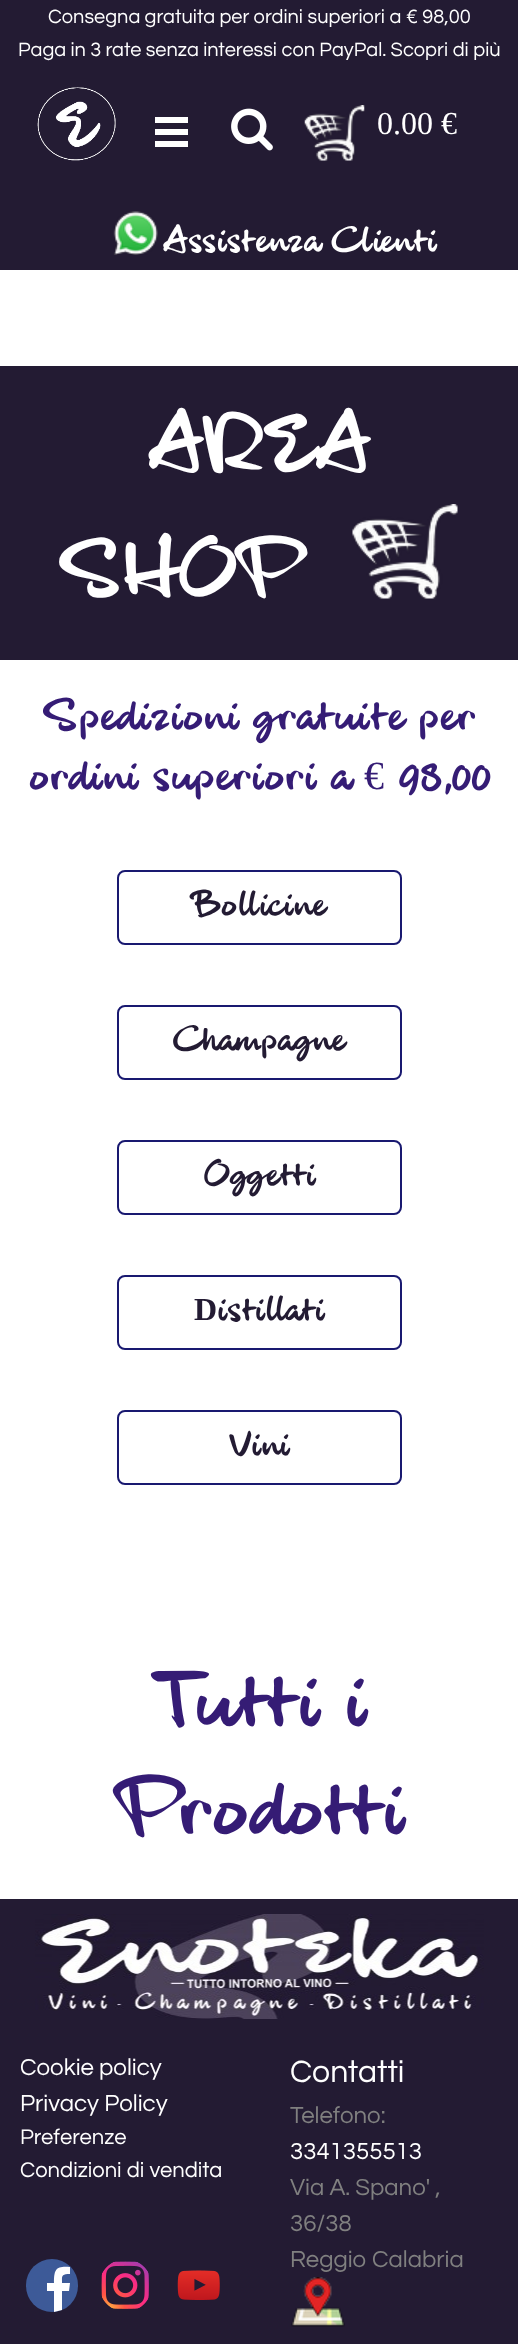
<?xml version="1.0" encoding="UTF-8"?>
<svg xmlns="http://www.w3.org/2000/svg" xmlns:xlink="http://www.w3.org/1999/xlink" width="518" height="2344">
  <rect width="100%" height="100%" fill="#ffffff" />
  <rect width="518" height="270" fill="#231b33" />
  <image x="37" y="87" width="79" height="74" xlink:href="image1.png" />
  <rect x="155" y="117" width="33" height="6" fill="#ffffff" />
  <rect x="155" y="129" width="33" height="6" fill="#ffffff" />
  <rect x="155" y="141" width="33" height="6" fill="#ffffff" />
  <image x="231" y="108" width="42" height="43" xlink:href="image2.png" />
  <image x="304" y="105" width="61" height="56" xlink:href="image3.png" />
  <image x="113" y="211" width="45" height="44" xlink:href="image4.png" />
  <rect y="366" width="518" height="294" fill="#231b33" />
  <image x="352" y="504" width="106" height="95" xlink:href="image5.png" />
  <rect x="118" y="871" width="283" height="73" rx="7" fill="none" stroke="#191970" stroke-width="2" />
  <rect x="118" y="1006" width="283" height="73" rx="7" fill="none" stroke="#191970" stroke-width="2" />
  <rect x="118" y="1141" width="283" height="73" rx="7" fill="none" stroke="#191970" stroke-width="2" />
  <rect x="118" y="1276" width="283" height="73" rx="7" fill="none" stroke="#191970" stroke-width="2" />
  <rect x="118" y="1411" width="283" height="73" rx="7" fill="none" stroke="#191970" stroke-width="2" />
  <rect y="1899" width="518" height="445" fill="#231b33" />
  <image x="35" y="1914" width="449" height="105" xlink:href="image6.png" />
  <image x="291" y="2277" width="54" height="50" xlink:href="image7.png" />
  <rect x="26" y="2259" width="52" height="53" rx="26" fill="#3d5a98" />
  <path d="M 62 2310 v -19 h 7 l 1 -8 h -8 c 0 -7 -1 -9 8 -9 v -7 c -14 -1 -16 2 -16 16 h -7 v 8 h 7 v 21 z" fill="#ffffff" />
  <image x="101" y="2261" width="48" height="48" xlink:href="image8.png" />
  <image x="177" y="2270" width="43" height="30" xlink:href="image9.png" />
  <text x="48" y="23" style="font-family: Questrial; font-size: 20px; fill: #ffffff">Consegna gratuita per ordini superiori a € 98,00</text>
  <text x="18" y="56" style="font-family: Questrial; font-size: 20px; fill: #ffffff">Paga in 3 rate senza interessi con PayPal. Scopri di più</text>
  <text x="377" y="134" style="font-family: Liberation Serif; font-size: 32px; fill: #ffffff">0.00 €</text>
  <text x="163" y="251" style="font-family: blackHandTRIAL; font-size: 32px; font-weight: 900; fill: #ffffff">Assistenza Clienti</text>
  <text x="148" y="468" style="font-family: blackHandTRIAL; font-size: 72px; font-weight: 900; fill: #ffffff">AREA</text>
  <text x="61" y="594" style="font-family: blackHandTRIAL; font-size: 72px; font-weight: 900; fill: #ffffff">SHOP</text>
  <text x="44" y="729" style="font-family: blackHandTRIAL; font-size: 40px; font-weight: 900; fill: #351c75">Spedizioni gratuite per</text>
  <text x="29" y="789" style="font-family: blackHandTRIAL; font-size: 40px; font-weight: 900; fill: #351c75">ordini superiori a</text>
  <text x="364" y="789" style="font-family: Liberation Serif; font-size: 40px; fill: #351c75">€</text>
  <text x="399" y="789" style="font-family: blackHandTRIAL; font-size: 40px; font-weight: 900; fill: #351c75">98,00</text>
  <text x="193" y="915" style="font-family: blackHandTRIAL; font-size: 32px; font-weight: 900; fill: #231b33">Bollicine</text>
  <text x="173" y="1050" style="font-family: blackHandTRIAL; font-size: 32px; font-weight: 900; fill: #231b33">Champagne</text>
  <text x="204" y="1185" style="font-family: blackHandTRIAL; font-size: 32px; font-weight: 900; fill: #231b33">Oggetti</text>
  <text x="194" y="1320" style="font-family: Liberation Serif; font-size: 32px; font-weight: bold; fill: #231b33">D</text>
  <text x="217" y="1320" style="font-family: blackHandTRIAL; font-size: 32px; font-weight: 900; fill: #231b33">istillati</text>
  <text x="230" y="1455" style="font-family: blackHandTRIAL; font-size: 32px; font-weight: 900; fill: #231b33">Vini</text>
  <text x="152" y="1725" style="font-family: blackHandTRIAL; font-size: 72px; font-weight: 900; fill: #351c75">Tutt</text>
  <text x="297" y="1725" style="font-family: blackHandTRIAL; font-size: 72px; font-weight: 900; fill: #351c75">i</text>
  <text x="344" y="1725" style="font-family: blackHandTRIAL; font-size: 72px; font-weight: 900; fill: #351c75">i</text>
  <text x="115" y="1833" style="font-family: blackHandTRIAL; font-size: 72px; font-weight: 900; fill: #351c75">Prodott</text>
  <text x="382" y="1833" style="font-family: blackHandTRIAL; font-size: 72px; font-weight: 900; fill: #351c75">i</text>
  <text x="20" y="2075" style="font-family: Questrial; font-size: 24px; fill: #ffffff">Cookie policy</text>
  <text x="20" y="2111" style="font-family: Questrial; font-size: 24px; fill: #ffffff">Privacy Policy</text>
  <text x="20" y="2144" style="font-family: Questrial; font-size: 22px; fill: #ffffff">Preferenze</text>
  <text x="20" y="2177" style="font-family: Questrial; font-size: 22px; fill: #ffffff">Condizioni di vendita</text>
  <text x="290" y="2082" style="font-family: Questrial; font-size: 32px; fill: #ffffff">Contatti</text>
  <text x="290" y="2123" style="font-family: Questrial; font-size: 24px; fill: #808080">Telefono:</text>
  <text x="290" y="2159" style="font-family: Questrial; font-size: 24px; fill: #ffffff">3341355513</text>
  <text x="290" y="2195" style="font-family: Questrial; font-size: 24px; fill: #808080">Via A. Spano' ,</text>
  <text x="290" y="2231" style="font-family: Questrial; font-size: 24px; fill: #808080">36/38</text>
  <text x="290" y="2267" style="font-family: Questrial; font-size: 24px; fill: #808080">Reggio Calabria</text>
</svg>
